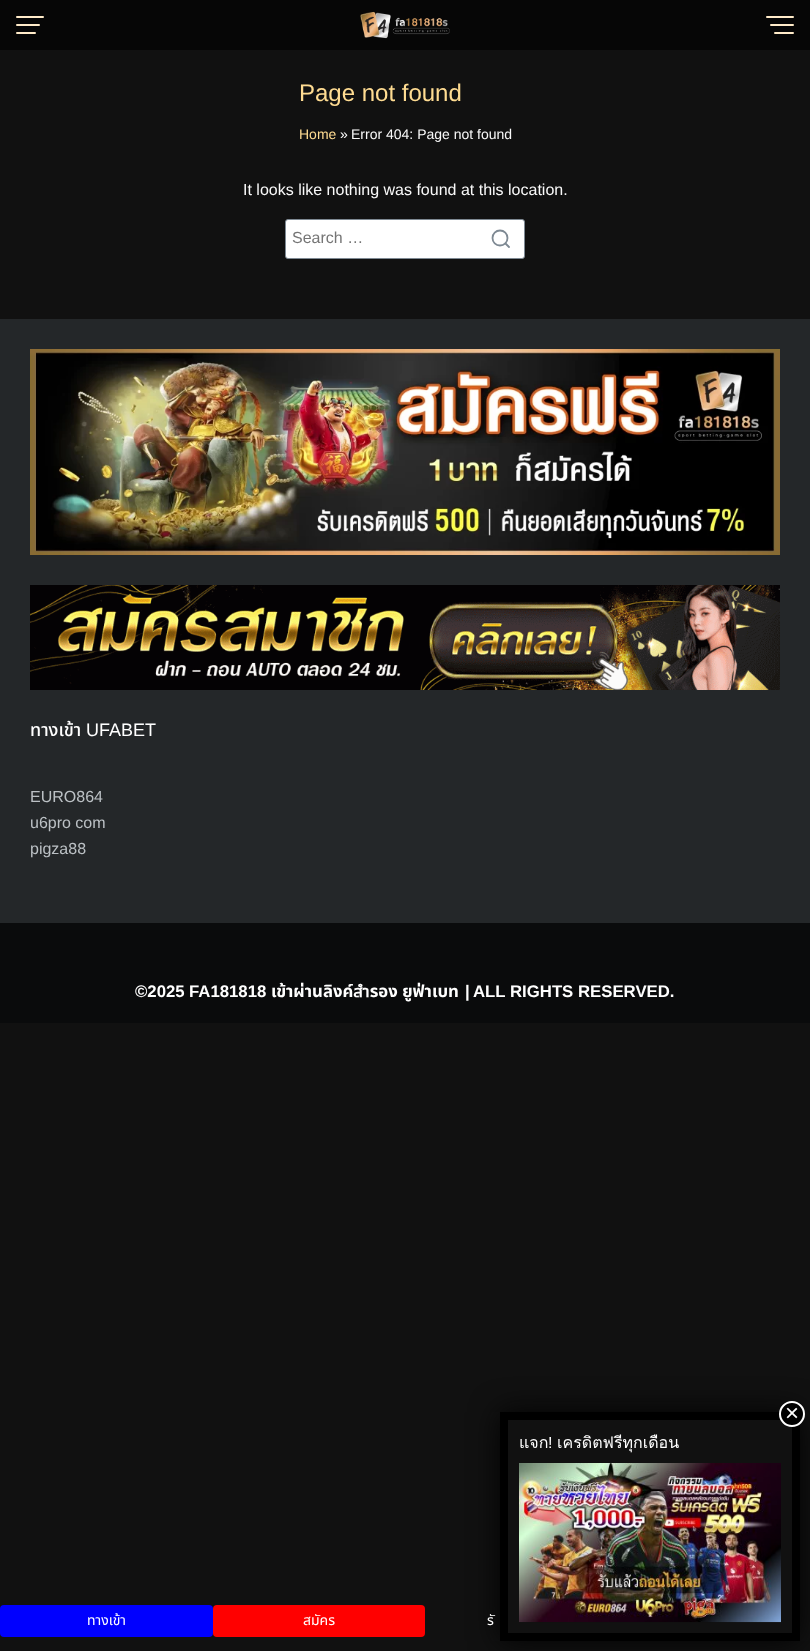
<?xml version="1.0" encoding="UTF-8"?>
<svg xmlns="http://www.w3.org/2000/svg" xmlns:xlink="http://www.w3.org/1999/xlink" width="810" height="1651">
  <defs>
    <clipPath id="clip1"><path d="M 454 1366 h 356 v 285 h -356 z m 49 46 h 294 c 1.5 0 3 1.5 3 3 v 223 c 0 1.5 -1.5 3 -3 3 h -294 c -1.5 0 -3 -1.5 -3 -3 v -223 c 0 -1.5 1.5 -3 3 -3 z" clip-rule="evenodd" /></clipPath>
  </defs>
  <rect width="100%" height="100%" fill="#111111" />
  <rect width="810" height="50" fill="#060606" />
  <rect x="16" y="24" width="24" height="2" rx="1" fill="#ffebc9" />
  <rect x="16" y="16" width="28" height="2" rx="1" fill="#ffebc9" />
  <rect x="16" y="32" width="20" height="2" rx="1" fill="#ffebc9" />
  <image x="360" y="11" width="90" height="28" xlink:href="image1.png" />
  <rect x="770" y="24" width="24" height="2" rx="1" fill="#ffebc9" />
  <rect x="766" y="16" width="28" height="2" rx="1" fill="#ffebc9" />
  <rect x="774" y="32" width="20" height="2" rx="1" fill="#ffebc9" />
  <rect x="285.5" y="219.5" width="239" height="39" rx="2.5" fill="#ffffff" stroke="#7e8993" />
  <circle cx="500" cy="238" r="7.5" fill="none" stroke="#7e8993" stroke-width="1.8" />
  <path d="M 509 247 l -3.5 -3.5" fill="none" stroke="#7e8993" stroke-width="1.8" stroke-linecap="round" stroke-linejoin="round" />
  <rect y="319" width="810" height="604" fill="#242729" />
  <image x="30" y="349" width="750" height="206" xlink:href="image2.png" />
  <image x="30" y="585" width="750" height="105" xlink:href="image3.png" />
  <rect y="923" width="810" height="100" fill="#0a0b0c" />
  <rect y="1605" width="213" height="32" rx="4" fill="#0000ff" />
  <rect x="213" y="1605" width="212" height="32" rx="4" fill="#ff0000" />
  <g clip-path="url(#clip1)">
    <rect x="500" y="1412" width="300" height="229" rx="3" fill="#020202" filter="blur(15px)" />
  </g>
  <path d="M 504 1416 h 292 v 221 h -292 z" fill="none" stroke="#000000" stroke-width="8" />
  <circle cx="792" cy="1414" r="12" fill="#000000" stroke="#ffffff" stroke-width="2" />
  <image x="519" y="1463" width="262" height="160" xlink:href="image4.png" />
  <text x="299" y="101" style="font-family: Liberation Sans; font-size: 24px; fill: #ffdc92">Page not found</text>
  <text x="299" y="139" style="font-family: Liberation Sans; font-size: 14px; fill: #ffdc92">Home</text>
  <text x="340" y="139" style="font-family: Liberation Sans; font-size: 14px; fill: #f9f9f9">»</text>
  <text x="351" y="139" style="font-family: Liberation Sans; font-size: 14px; fill: #f9f9f9">Error 404: Page not found</text>
  <text x="243" y="195" style="font-family: Liberation Sans; font-size: 16px; fill: #f9f9f9">It looks like nothing was found at this location.</text>
  <text x="292" y="243" style="font-family: Liberation Sans; font-size: 16px; fill: #757575">Search …</text>
  <text x="30" y="736" style="font-family: Noto Sans Thai; font-size: 18px; font-weight: 500; fill: #ffffff">ทางเข้า</text>
  <text x="86" y="736" style="font-family: Liberation Sans; font-size: 18px; fill: #ffffff">UFABET</text>
  <text x="30" y="802" style="font-family: Liberation Sans; font-size: 16px; fill: #bbc0c4">EURO864</text>
  <text x="30" y="828" style="font-family: Liberation Sans; font-size: 16px; fill: #bbc0c4">u6pro com</text>
  <text x="30" y="854" style="font-family: Liberation Sans; font-size: 16px; fill: #bbc0c4">pigza88</text>
  <text x="135" y="997" style="font-family: Liberation Sans; font-size: 16.75px; font-weight: bold; fill: #ffffff">©2025</text>
  <text x="189" y="997" style="font-family: Liberation Sans; font-size: 16.75px; font-weight: bold; fill: #ffffff">FA181818</text>
  <text x="271" y="997" style="font-family: Noto Sans Thai; font-size: 16.75px; font-weight: bold; fill: #ffffff">เข้าผ่านลิงค์สำรอง ยูฟ่าเบท</text>
  <text x="465" y="997" style="font-family: Liberation Sans; font-size: 16.75px; font-weight: bold; fill: #ffffff">|</text>
  <text x="473" y="997" style="font-family: Liberation Sans; font-size: 16.75px; font-weight: bold; fill: #ffffff">ALL</text>
  <text x="510" y="997" style="font-family: Liberation Sans; font-size: 16.75px; font-weight: bold; fill: #ffffff">RIGHTS</text>
  <text x="578" y="997" style="font-family: Liberation Sans; font-size: 16.75px; font-weight: bold; fill: #ffffff">RESERVED.</text>
  <text x="87" y="1625" style="font-family: Noto Sans Thai; font-size: 14px; fill: #ffffff">ทางเข้า</text>
  <text x="303" y="1625" style="font-family: Noto Sans Thai; font-size: 14px; fill: #ffffff">สมัคร</text>
  <text x="487" y="1625" style="font-family: Noto Sans Thai; font-size: 14px; fill: #ffffff">รั</text>
  <text x="785" y="1421" style="font-family: Liberation Sans; font-size: 24px; fill: #ffffff">×</text>
  <text x="519" y="1448" style="font-family: Loma; font-size: 16px; fill: #ffffff">แจก</text>
  <text x="548" y="1448" style="font-family: Liberation Sans; font-size: 16px; fill: #ffffff">!</text>
  <text x="557" y="1448" style="font-family: Loma; font-size: 16px; fill: #ffffff">เครดิตฟรีทุกเดือน</text>
</svg>
